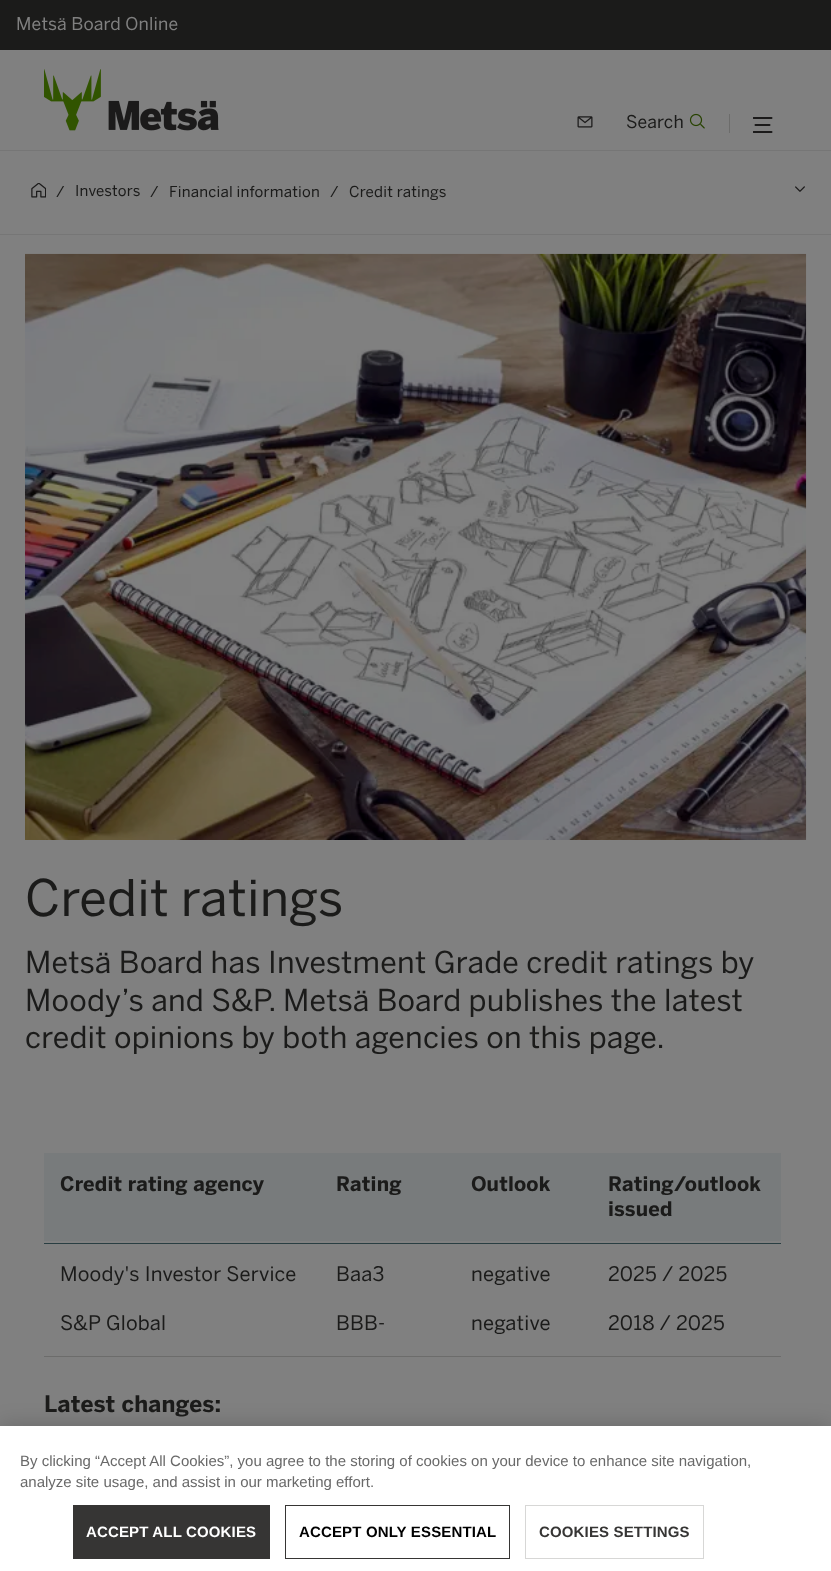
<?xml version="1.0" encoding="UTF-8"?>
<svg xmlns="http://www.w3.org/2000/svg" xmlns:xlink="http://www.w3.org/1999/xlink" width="831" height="1571">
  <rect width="100%" height="100%" fill="#808080" />
  <rect width="831" height="50" fill="#1b1b1a" />
  <rect y="150" width="831" height="1" fill="#767676" />
  <image x="44" y="69" width="175" height="62" xlink:href="image1.png" />
  <image x="577" y="116" width="16" height="12" xlink:href="image2.png" />
  <image x="689" y="113" width="16" height="16" xlink:href="image3.png" />
  <rect x="729" y="114" width="1" height="19" fill="#6c6c6b" />
  <image x="753" y="117" width="20" height="16" xlink:href="image4.png" />
  <rect y="234" width="831" height="1" fill="#767676" />
  <image x="31" y="183" width="15" height="15" xlink:href="image5.png" />
  <image x="795" y="186" width="10" height="6" xlink:href="image6.png" />
  <image x="25" y="253" width="782" height="587" xlink:href="image7.png" />
  <rect x="44" y="1356" width="737" height="1" fill="#6c6c6b" />
  <rect x="44" y="1153" width="737" height="88" fill="#787b7c" />
  <rect x="44" y="1243" width="737" height="1" fill="#293e42" />
  <rect y="1426" width="831" height="145" fill="#000000" fill-opacity="0.2" filter="blur(11px)" />
  <rect y="1426" width="831" height="145" fill="#ffffff" />
  <rect x="73" y="1505" width="197" height="54" fill="#363534" />
  <rect x="285.5" y="1505.5" width="224" height="53" fill="none" stroke="#363534" />
  <rect x="525.5" y="1505.5" width="178" height="53" fill="none" stroke="#d7d7d6" />
  <text x="16" y="30" style="font-family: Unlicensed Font; font-size: 17.5px; letter-spacing: 0.2px; fill: #808080">Metsä Board Online</text>
  <text x="626" y="128" style="font-family: Unlicensed Font; font-size: 17.5px; letter-spacing: 0.2px; fill: #1b1b1a">Search</text>
  <text x="56" y="197" style="font-family: Unlicensed Font; font-size: 15px; letter-spacing: 0.2px; fill: #1b1b1a">/</text>
  <text x="75" y="196" style="font-family: Unlicensed Font; font-size: 15px; letter-spacing: 0.2px; fill: #1b1b1a">Investors</text>
  <text x="150" y="197" style="font-family: Unlicensed Font; font-size: 15px; letter-spacing: 0.2px; fill: #1b1b1a">/</text>
  <text x="169" y="197" style="font-family: Unlicensed Font; font-size: 15px; letter-spacing: 0.2px; fill: #1b1b1a">Financial information</text>
  <text x="330" y="197" style="font-family: Unlicensed Font; font-size: 15px; letter-spacing: 0.2px; fill: #1b1b1a">/</text>
  <text x="349" y="197" style="font-family: Unlicensed Font; font-size: 15px; letter-spacing: 0.2px; fill: #1b1b1a">Credit ratings</text>
  <text x="25" y="916" style="font-family: Unlicensed Font; font-size: 50px; letter-spacing: 0.2px; fill: #1b1b1a">Credit ratings</text>
  <text x="25" y="973" style="font-family: Unlicensed Font; font-size: 30px; letter-spacing: 0.2px; fill: #1b1b1a">Metsä Board has Investment Grade credit ratings by</text>
  <text x="25" y="1011" style="font-family: Unlicensed Font; font-size: 30px; letter-spacing: 0.2px; fill: #1b1b1a">Moody’s and S&amp;P. Metsä Board publishes the latest</text>
  <text x="25" y="1048" style="font-family: Unlicensed Font; font-size: 30px; letter-spacing: 0.2px; fill: #1b1b1a">credit opinions by both agencies on this page.</text>
  <text x="60" y="1191" style="font-family: Unlicensed Font; font-size: 20px; font-weight: bold; letter-spacing: 0.2px; fill: #1b1b1a">Credit rating agency</text>
  <text x="336" y="1191" style="font-family: Unlicensed Font; font-size: 20px; font-weight: bold; letter-spacing: 0.2px; fill: #1b1b1a">Rating</text>
  <text x="471" y="1191" style="font-family: Unlicensed Font; font-size: 20px; font-weight: bold; letter-spacing: 0.2px; fill: #1b1b1a">Outlook</text>
  <text x="608" y="1191" style="font-family: Unlicensed Font; font-size: 20px; font-weight: bold; letter-spacing: 0.2px; fill: #1b1b1a">Rating/outlook</text>
  <text x="608" y="1216" style="font-family: Unlicensed Font; font-size: 20px; font-weight: bold; letter-spacing: 0.2px; fill: #1b1b1a">issued</text>
  <text x="60" y="1281" style="font-family: Unlicensed Font; font-size: 20px; letter-spacing: 0.2px; fill: #1b1b1a">Moody's Investor Service</text>
  <text x="336" y="1281" style="font-family: Unlicensed Font; font-size: 20px; letter-spacing: 0.2px; fill: #1b1b1a">Baa3</text>
  <text x="471" y="1281" style="font-family: Unlicensed Font; font-size: 20px; letter-spacing: 0.2px; fill: #1b1b1a">negative</text>
  <text x="608" y="1281" style="font-family: Unlicensed Font; font-size: 20px; letter-spacing: 0.2px; fill: #1b1b1a">2025 / 2025</text>
  <text x="60" y="1330" style="font-family: Unlicensed Font; font-size: 20px; letter-spacing: 0.2px; fill: #1b1b1a">S&amp;P Global</text>
  <text x="336" y="1330" style="font-family: Unlicensed Font; font-size: 20px; letter-spacing: 0.2px; fill: #1b1b1a">BBB-</text>
  <text x="471" y="1330" style="font-family: Unlicensed Font; font-size: 20px; letter-spacing: 0.2px; fill: #1b1b1a">negative</text>
  <text x="608" y="1330" style="font-family: Unlicensed Font; font-size: 20px; letter-spacing: 0.2px; fill: #1b1b1a">2018 / 2025</text>
  <text x="44" y="1412" style="font-family: Unlicensed Font; font-size: 22.5px; font-weight: bold; letter-spacing: 0.2px; fill: #1b1b1a">Latest changes:</text>
  <text x="20" y="1466" style="font-family: Liberation Sans; font-size: 15px; fill: #696969">By clicking “Accept All Cookies”, you agree to the storing of cookies on your device to enhance site navigation,</text>
  <text x="20" y="1487" style="font-family: Liberation Sans; font-size: 15px; fill: #696969">analyze site usage, and assist in our marketing effort.</text>
  <text x="86" y="1537" style="font-family: Liberation Sans; font-size: 15px; font-weight: bold; letter-spacing: 0.15px; fill: #ffffff">ACCEPT ALL COOKIES</text>
  <text x="299" y="1537" style="font-family: Liberation Sans; font-size: 15px; font-weight: bold; letter-spacing: 0.15px; fill: #000000">ACCEPT ONLY ESSENTIAL</text>
  <text x="539" y="1537" style="font-family: Liberation Sans; font-size: 15px; font-weight: bold; letter-spacing: 0.15px; fill: #363534">COOKIES SETTINGS</text>
</svg>
